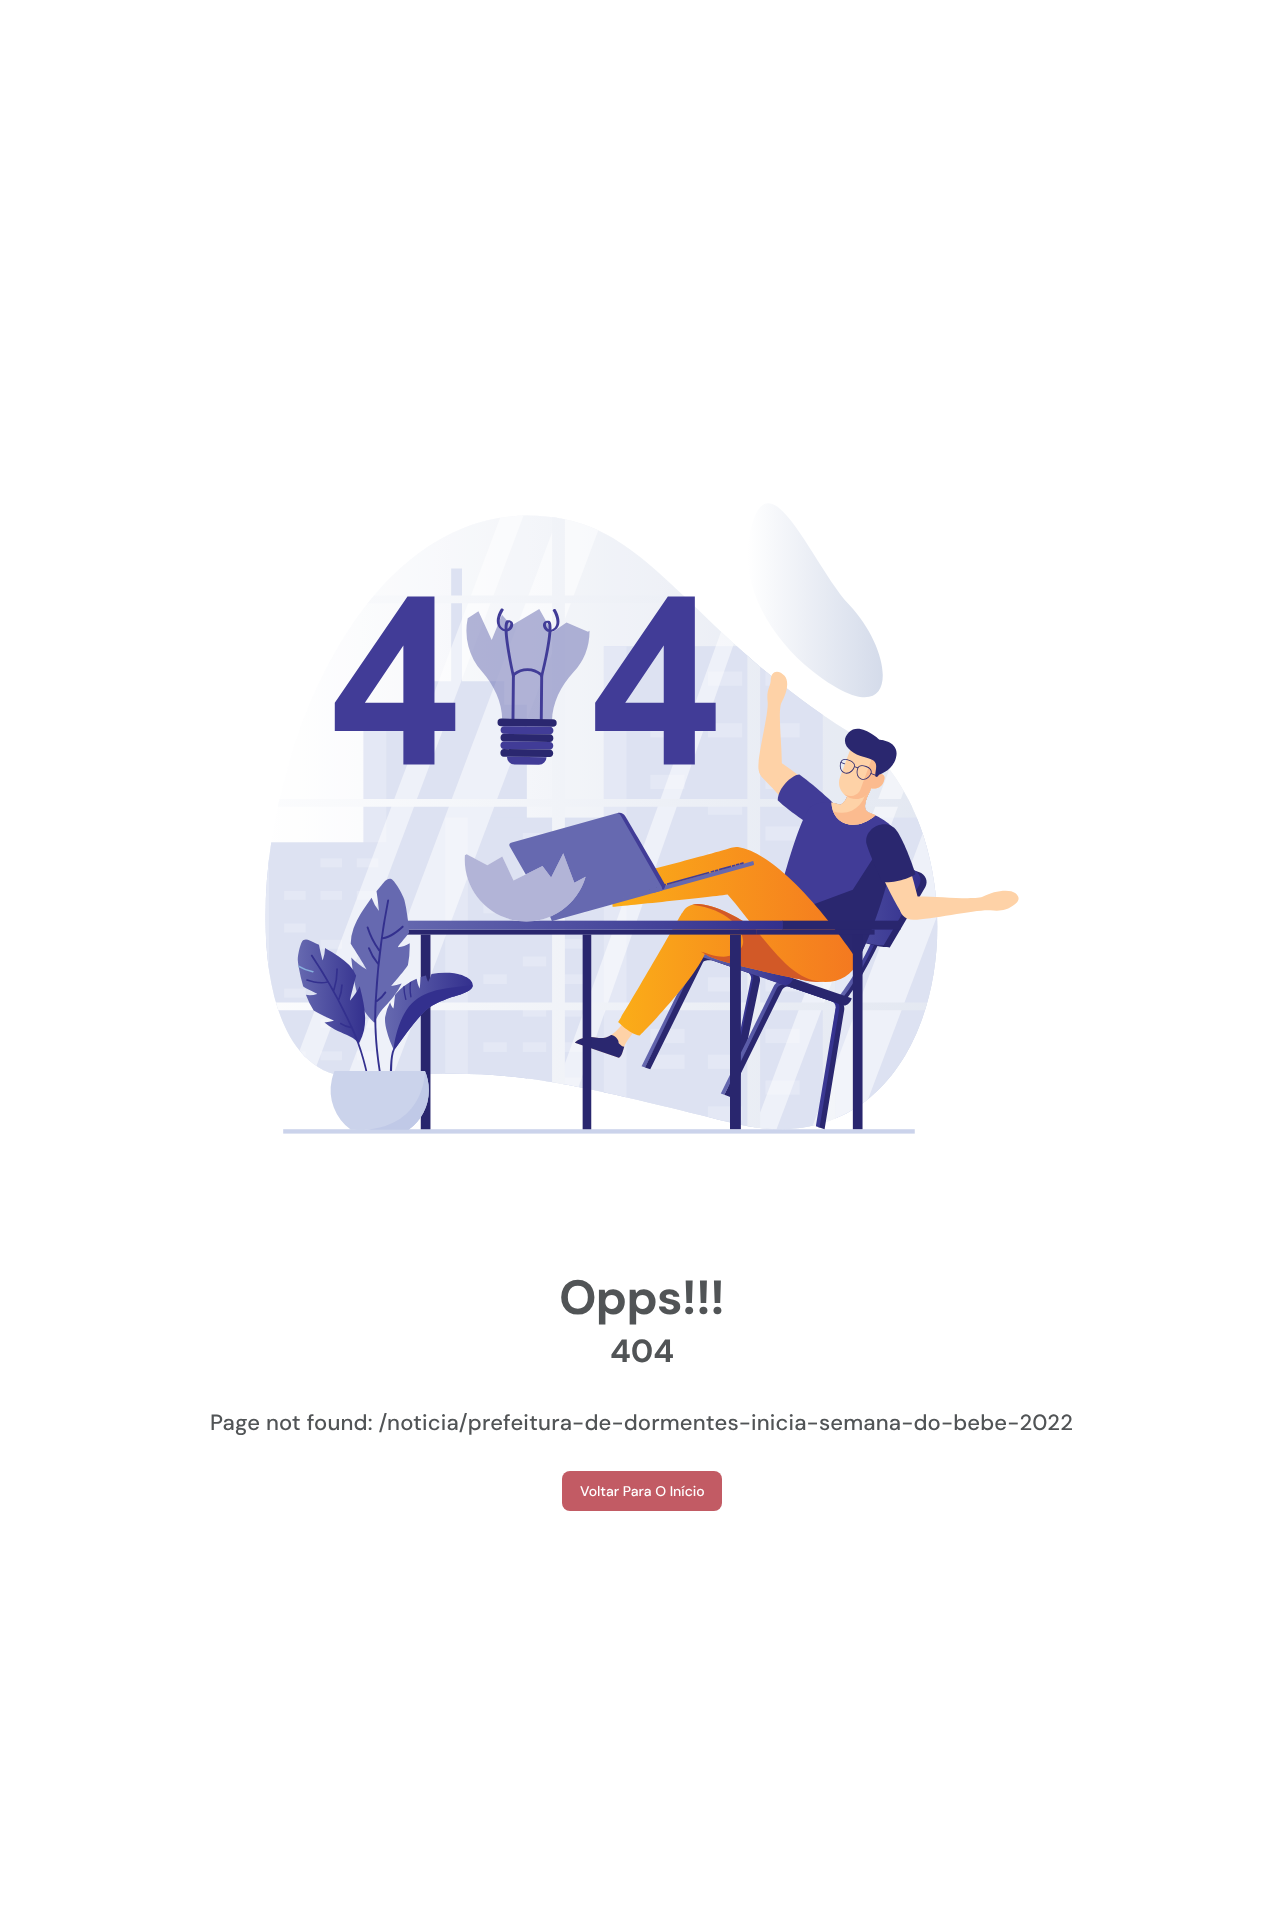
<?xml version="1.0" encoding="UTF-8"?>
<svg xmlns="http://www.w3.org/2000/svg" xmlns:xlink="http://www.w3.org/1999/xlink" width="1284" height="1914">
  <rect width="100%" height="100%" fill="#ffffff" />
  <image x="265" y="503" width="754" height="631" xlink:href="image1.png" />
  <rect x="562" y="1471" width="160" height="40" rx="8" fill="#c25b64" />
  <text x="559" y="1314" style="font-family: DM Sans; font-size: 48px; font-weight: bold; letter-spacing: -0.75px; fill: #515456">Opps!!!</text>
  <text x="610" y="1362" style="font-family: DM Sans; font-size: 32px; font-weight: bold; fill: #515456">404</text>
  <text x="210" y="1430" style="font-family: DM Sans; font-size: 22px; font-weight: 500; letter-spacing: 0.15px; fill: #515456">Page not found: /noticia/prefeitura-de-dormentes-inicia-semana-do-bebe-2022</text>
  <text x="580" y="1496" style="font-family: DM Sans; font-size: 14px; font-weight: 500; fill: #ffffff">Voltar Para O Início</text>
</svg>
